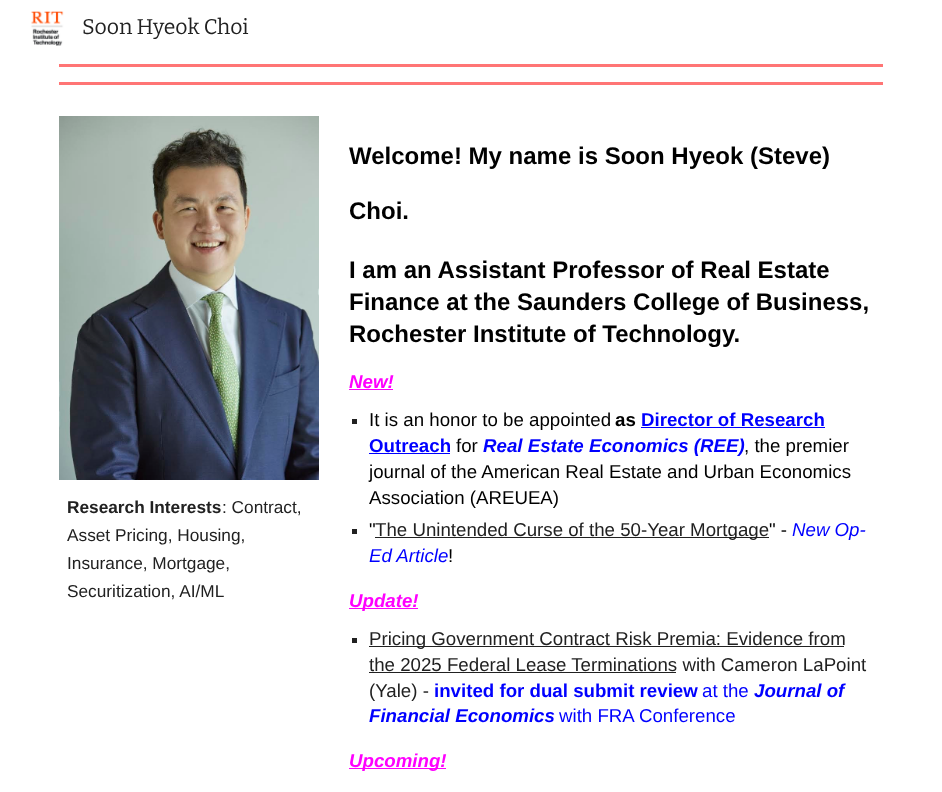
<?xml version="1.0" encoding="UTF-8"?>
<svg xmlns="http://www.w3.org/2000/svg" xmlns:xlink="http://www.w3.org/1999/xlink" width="942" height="792">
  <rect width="100%" height="100%" fill="#ffffff" />
  <image x="31" y="11" width="33" height="35" xlink:href="image1.png" />
  <rect x="59" y="64" width="824" height="3" fill="#ff7575" />
  <rect x="59" y="82" width="824" height="3" fill="#ff7575" />
  <image x="59" y="116" width="260" height="364" xlink:href="image2.png" />
  <rect x="349" y="389" width="44" height="1" fill="#ff00ff" />
  <rect x="352" y="419" width="5" height="5" fill="#212121" />
  <rect x="641" y="427" width="184" height="1" fill="#0000ff" />
  <rect x="369" y="453" width="81" height="1" fill="#0000ff" />
  <rect x="352" y="529" width="5" height="5" fill="#212121" />
  <rect x="375" y="537" width="394" height="1" fill="#212121" />
  <rect x="349" y="608" width="69" height="1" fill="#ff00ff" />
  <rect x="352" y="638" width="5" height="5" fill="#212121" />
  <rect x="369" y="646" width="475" height="1" fill="#212121" />
  <rect x="369" y="672" width="307" height="1" fill="#212121" />
  <rect x="349" y="768" width="97" height="1" fill="#ff00ff" />
  <text x="82" y="34" style="font-family: Bitter; font-size: 21.25px; fill: #212121">Soon Hyeok Choi</text>
  <text x="67" y="513" style="font-family: Liberation Sans; font-size: 17.25px; font-weight: bold; fill: #212121">Research Interests</text>
  <text x="222" y="513" style="font-family: Liberation Sans; font-size: 17.25px; fill: #212121">: Contract,</text>
  <text x="67" y="541" style="font-family: Liberation Sans; font-size: 17.25px; fill: #212121">Asset Pricing, Housing,</text>
  <text x="67" y="569" style="font-family: Liberation Sans; font-size: 17.25px; fill: #212121">Insurance, Mortgage,</text>
  <text x="67" y="597" style="font-family: Liberation Sans; font-size: 17.25px; fill: #212121">Securitization, AI/ML</text>
  <text x="349" y="164" style="font-family: Liberation Sans; font-size: 24px; font-weight: bold; fill: #000000">Welcome! My name is Soon Hyeok (Steve)</text>
  <text x="349" y="219" style="font-family: Liberation Sans; font-size: 24px; font-weight: bold; fill: #000000">Choi.</text>
  <text x="349" y="278" style="font-family: Liberation Sans; font-size: 24px; font-weight: bold; fill: #000000">I am an Assistant Professor of Real Estate</text>
  <text x="349" y="310" style="font-family: Liberation Sans; font-size: 24px; font-weight: bold; fill: #000000">Finance at the Saunders College of Business,</text>
  <text x="349" y="342" style="font-family: Liberation Sans; font-size: 24px; font-weight: bold; fill: #000000">Rochester Institute of Technology.</text>
  <text x="349" y="388" style="font-family: Liberation Sans; font-size: 18.7px; font-weight: bold; font-style: italic; fill: #ff00ff">New!</text>
  <text x="369" y="426" style="font-family: Liberation Sans; font-size: 18.7px; fill: #000000">It is an honor to be appointed</text>
  <text x="615" y="426" style="font-family: Liberation Sans; font-size: 18.7px; font-weight: bold; fill: #000000">as</text>
  <text x="641" y="426" style="font-family: Liberation Sans; font-size: 18.7px; font-weight: bold; fill: #0000ff">Director of Research</text>
  <text x="369" y="452" style="font-family: Liberation Sans; font-size: 18.7px; font-weight: bold; fill: #0000ff">Outreach</text>
  <text x="456" y="452" style="font-family: Liberation Sans; font-size: 18.7px; fill: #000000">for</text>
  <text x="483" y="452" style="font-family: Liberation Sans; font-size: 18.7px; font-weight: bold; font-style: italic; fill: #0000ff">Real Estate Economics (REE)</text>
  <text x="744" y="452" style="font-family: Liberation Sans; font-size: 18.7px; fill: #000000">, the premier</text>
  <text x="369" y="478" style="font-family: Liberation Sans; font-size: 18.7px; fill: #000000">journal of the American Real Estate and Urban Economics</text>
  <text x="369" y="504" style="font-family: Liberation Sans; font-size: 18.7px; fill: #000000">Association (AREUEA)</text>
  <text x="369" y="536" style="font-family: Liberation Sans; font-size: 18.7px; fill: #000000">"</text>
  <text x="375" y="536" style="font-family: Liberation Sans; font-size: 18.7px; fill: #212121">The Unintended Curse of the 50-Year Mortgage</text>
  <text x="769" y="536" style="font-family: Liberation Sans; font-size: 18.7px; fill: #000000">" -</text>
  <text x="792" y="536" style="font-family: Liberation Sans; font-size: 18.7px; font-style: italic; fill: #0000ff">New Op-</text>
  <text x="369" y="562" style="font-family: Liberation Sans; font-size: 18.7px; font-style: italic; fill: #0000ff">Ed Article</text>
  <text x="448" y="562" style="font-family: Liberation Sans; font-size: 18.7px; fill: #000000">!</text>
  <text x="349" y="607" style="font-family: Liberation Sans; font-size: 18.7px; font-weight: bold; font-style: italic; fill: #ff00ff">Update!</text>
  <text x="369" y="645" style="font-family: Liberation Sans; font-size: 18.7px; fill: #212121">Pricing Government Contract Risk Premia: Evidence from</text>
  <text x="369" y="671" style="font-family: Liberation Sans; font-size: 18.7px; fill: #212121">the 2025 Federal Lease Terminations with Cameron LaPoint</text>
  <text x="369" y="697" style="font-family: Liberation Sans; font-size: 18.7px; fill: #212121">(Yale) -</text>
  <text x="434" y="697" style="font-family: Liberation Sans; font-size: 18.7px; font-weight: bold; fill: #0000ff">invited for dual submit review</text>
  <text x="702" y="697" style="font-family: Liberation Sans; font-size: 18.7px; fill: #0000ff">at the</text>
  <text x="754" y="697" style="font-family: Liberation Sans; font-size: 18.7px; font-weight: bold; font-style: italic; fill: #0000ff">Journal of</text>
  <text x="369" y="722" style="font-family: Liberation Sans; font-size: 18.7px; font-weight: bold; font-style: italic; fill: #0000ff">Financial Economics</text>
  <text x="559" y="722" style="font-family: Liberation Sans; font-size: 18.7px; fill: #0000ff">with FRA Conference</text>
  <text x="349" y="767" style="font-family: Liberation Sans; font-size: 18.7px; font-weight: bold; font-style: italic; fill: #ff00ff">Upcoming!</text>
</svg>
